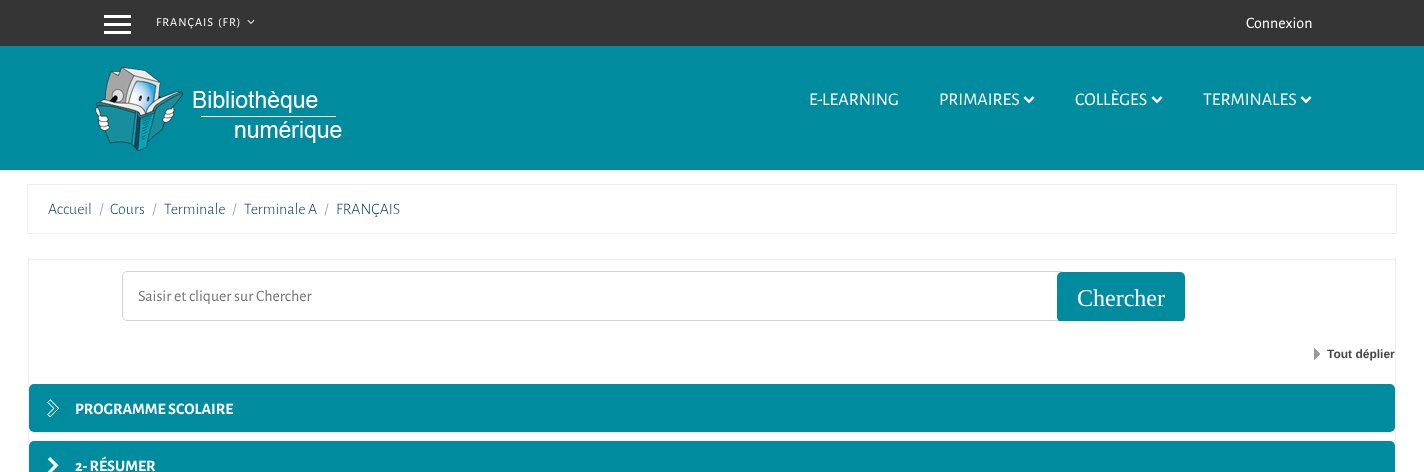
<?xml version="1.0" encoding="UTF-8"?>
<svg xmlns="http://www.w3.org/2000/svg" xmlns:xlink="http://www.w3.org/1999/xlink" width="1424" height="472">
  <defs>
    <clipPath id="clip1"><rect x="122" y="271" width="1180" height="50" /></clipPath>
  </defs>
  <rect width="100%" height="100%" fill="#ffffff" />
  <rect width="1424" height="46" fill="#353535" />
  <rect x="104" y="15" width="27" height="3" fill="#ffffff" />
  <rect x="104" y="23" width="27" height="3" fill="#ffffff" />
  <rect x="104" y="31" width="27" height="3" fill="#ffffff" />
  <image x="247" y="20" width="8" height="4" xlink:href="image1.png" />
  <rect y="46" width="1424" height="124" fill="#008b9e" />
  <image x="95" y="67" width="247" height="84" xlink:href="image2.png" />
  <image x="1023" y="96" width="12" height="8" xlink:href="image3.png" />
  <image x="1151" y="96" width="12" height="8" xlink:href="image3.png" />
  <image x="1300" y="96" width="12" height="8" xlink:href="image3.png" />
  <rect x="27.5" y="184.5" width="1369" height="49" fill="none" stroke="#eeeeee" />
  <rect x="28.5" y="259.5" width="1367" height="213" fill="none" stroke="#eeeeee" />
  <rect x="122.5" y="271.5" width="943" height="49" rx="4.5" fill="none" stroke="#d4d4d4" />
  <g clip-path="url(#clip1)">
    <rect x="1057" y="272" width="128" height="50" rx="5" fill="#008b9e" />
  </g>
  <image x="1314" y="348" width="6" height="12" xlink:href="image4.png" />
  <rect x="29" y="384" width="1366" height="48" rx="5" fill="#008b9e" />
  <image x="47" y="399" width="12" height="18" xlink:href="image5.png" />
  <rect x="29" y="441" width="1366" height="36" rx="5" fill="#008b9e" />
  <image x="47" y="457" width="12" height="15" xlink:href="image6.png" />
  <text x="156" y="26" word-spacing="1" style="font-family: Alegreya Sans; font-size: 12.25px; letter-spacing: 1px; fill: #ffffff">FRANÇAIS (FR)</text>
  <text x="1246" y="28" style="font-family: Alegreya Sans; font-size: 16px; fill: #ffffff">Connexion</text>
  <text x="809" y="105" style="font-family: Alegreya Sans; font-size: 18px; fill: #ffffff">E-LEARNING</text>
  <text x="939" y="105" style="font-family: Alegreya Sans; font-size: 18px; fill: #ffffff">PRIMAIRES</text>
  <text x="1075" y="105" style="font-family: Alegreya Sans; font-size: 18px; fill: #ffffff">COLLÈGES</text>
  <text x="1203" y="105" style="font-family: Alegreya Sans; font-size: 18px; fill: #ffffff">TERMINALES</text>
  <text x="48" y="214" style="font-family: Alegreya Sans; font-size: 16px; font-weight: 300; fill: #003e5f">Accueil</text>
  <text x="99" y="214" style="font-family: Alegreya Sans; font-size: 16px; font-weight: 300; fill: #818a91">/</text>
  <text x="110" y="214" style="font-family: Alegreya Sans; font-size: 16px; font-weight: 300; fill: #003e5f">Cours</text>
  <text x="152" y="214" style="font-family: Alegreya Sans; font-size: 16px; font-weight: 300; fill: #818a91">/</text>
  <text x="164" y="214" style="font-family: Alegreya Sans; font-size: 16px; font-weight: 300; fill: #003e5f">Terminale</text>
  <text x="232" y="214" style="font-family: Alegreya Sans; font-size: 16px; font-weight: 300; fill: #818a91">/</text>
  <text x="244" y="214" style="font-family: Alegreya Sans; font-size: 16px; font-weight: 300; fill: #003e5f">Terminale A</text>
  <text x="324" y="214" style="font-family: Alegreya Sans; font-size: 16px; font-weight: 300; fill: #818a91">/</text>
  <text x="336" y="214" style="font-family: Alegreya Sans; font-size: 16px; font-weight: 300; fill: #003e5f">FRANÇAIS</text>
  <text x="138" y="301" style="font-family: Alegreya Sans; font-size: 16px; fill: #757575">Saisir et cliquer sur Chercher</text>
  <text x="1077" y="306" style="font-family: Liberation Serif; font-size: 24px; fill: #ffffff">Chercher</text>
  <text x="1327" y="358" style="font-family: Liberation Sans; font-size: 12px; font-weight: bold; fill: #484848">Tout déplier</text>
  <text x="75" y="414" style="font-family: Alegreya Sans; font-size: 16px; font-weight: bold; fill: #ffffff">PROGRAMME SCOLAIRE</text>
  <text x="75" y="471" style="font-family: Alegreya Sans; font-size: 16px; font-weight: bold; fill: #ffffff">2- RÉSUMER</text>
</svg>
